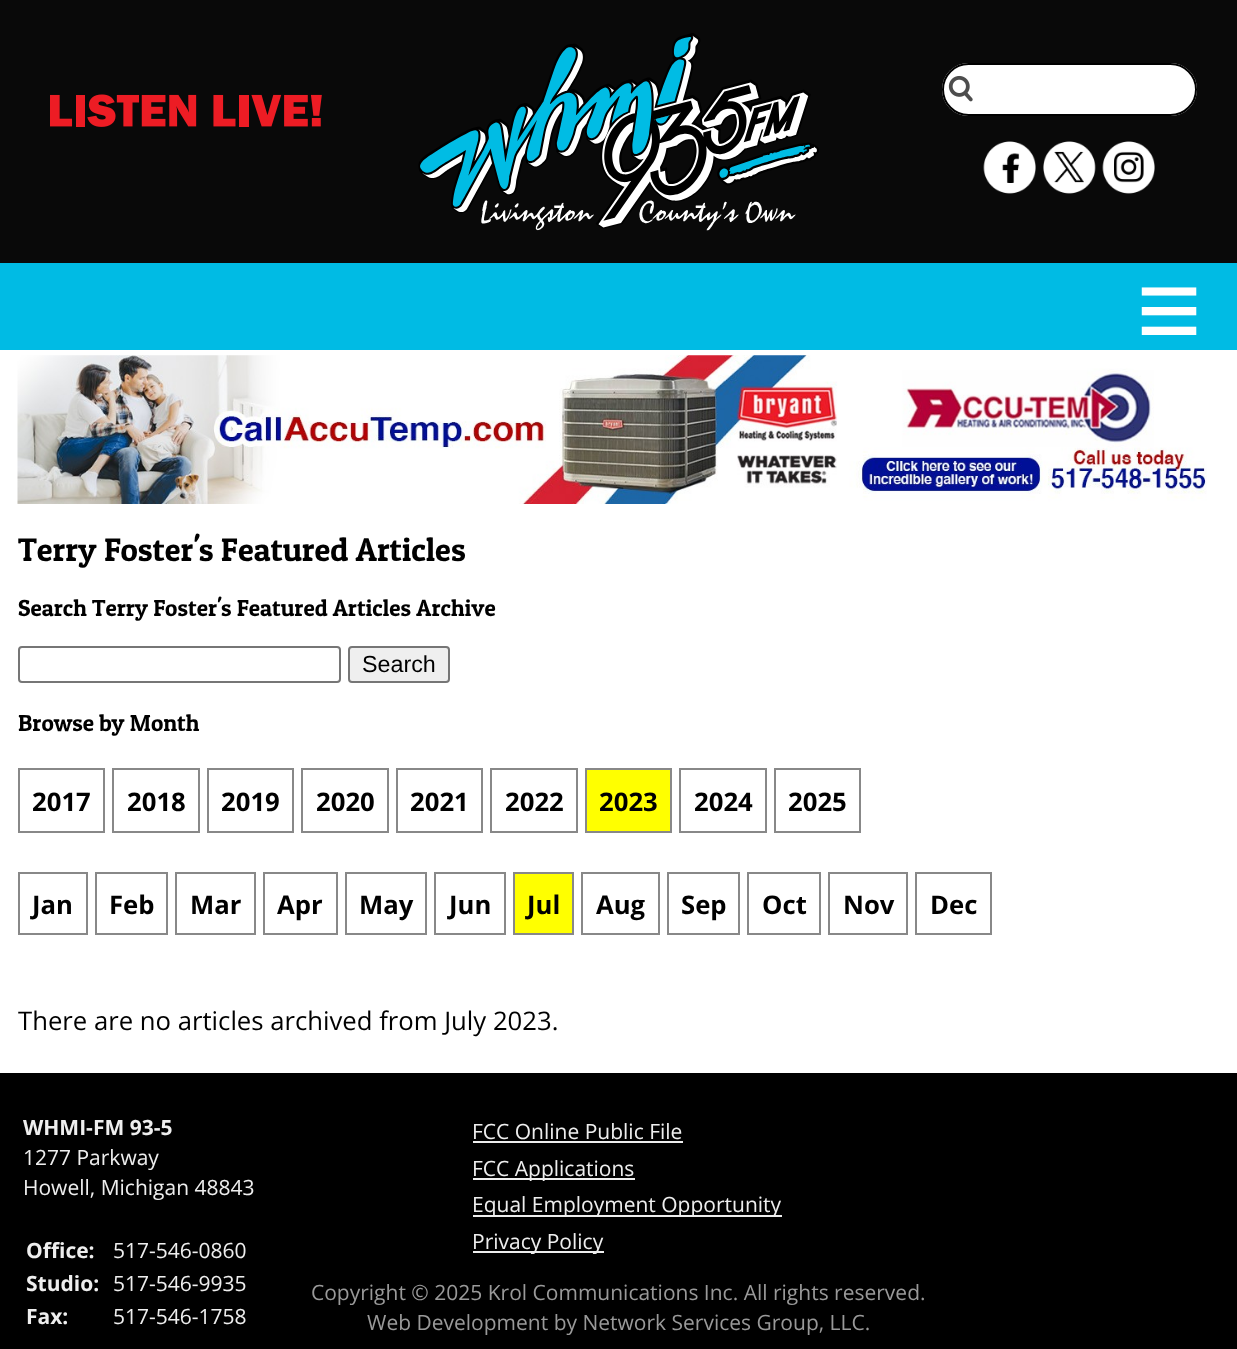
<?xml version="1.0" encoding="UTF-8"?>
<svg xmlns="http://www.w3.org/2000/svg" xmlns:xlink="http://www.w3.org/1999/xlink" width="1237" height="1349">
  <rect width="100%" height="100%" fill="#ffffff" />
  <rect width="1237" height="263" fill="#090909" />
  <image x="50" y="94" width="272" height="33" xlink:href="image1.png" />
  <image x="418" y="33" width="401" height="198" xlink:href="image2.png" />
  <rect x="942" y="63" width="255" height="53" rx="26.5" fill="#ffffff" />
  <image x="948" y="75" width="25" height="27" xlink:href="image3.png" />
  <rect x="943" y="64" width="253" height="51" rx="25.5" fill="none" stroke="#000000" stroke-width="2" />
  <image x="983" y="141" width="53" height="53" xlink:href="image4.png" />
  <image x="1043" y="141" width="53" height="53" xlink:href="image5.png" />
  <image x="1102" y="141" width="53" height="53" xlink:href="image6.png" />
  <rect y="263" width="1237" height="87" fill="#00bbe4" />
  <image x="17" y="355" width="1190" height="149" xlink:href="image7.png" />
  <rect x="19" y="647" width="321" height="35" rx="3" fill="none" stroke="#767676" stroke-width="2" />
  <rect x="349" y="647" width="100" height="35" rx="3" fill="#efefef" stroke="#767676" stroke-width="2" />
  <rect x="19" y="769" width="85" height="63" fill="none" stroke="#888888" stroke-width="2" />
  <rect x="113" y="769" width="86" height="63" fill="none" stroke="#888888" stroke-width="2" />
  <rect x="208" y="769" width="85" height="63" fill="none" stroke="#888888" stroke-width="2" />
  <rect x="302" y="769" width="86" height="63" fill="none" stroke="#888888" stroke-width="2" />
  <rect x="397" y="769" width="85" height="63" fill="none" stroke="#888888" stroke-width="2" />
  <rect x="491" y="769" width="86" height="63" fill="none" stroke="#888888" stroke-width="2" />
  <rect x="586" y="769" width="85" height="63" fill="#ffff00" stroke="#888888" stroke-width="2" />
  <rect x="680" y="769" width="86" height="63" fill="none" stroke="#888888" stroke-width="2" />
  <rect x="775" y="769" width="85" height="63" fill="none" stroke="#888888" stroke-width="2" />
  <rect x="19" y="873" width="68" height="61" fill="none" stroke="#888888" stroke-width="2" />
  <rect x="96" y="873" width="71" height="61" fill="none" stroke="#888888" stroke-width="2" />
  <rect x="176" y="873" width="79" height="61" fill="none" stroke="#888888" stroke-width="2" />
  <rect x="264" y="873" width="73" height="61" fill="none" stroke="#888888" stroke-width="2" />
  <rect x="346" y="873" width="80" height="61" fill="none" stroke="#888888" stroke-width="2" />
  <rect x="435" y="873" width="70" height="61" fill="none" stroke="#888888" stroke-width="2" />
  <rect x="514" y="873" width="59" height="61" fill="#ffff00" stroke="#888888" stroke-width="2" />
  <rect x="582" y="873" width="77" height="61" fill="none" stroke="#888888" stroke-width="2" />
  <rect x="668" y="873" width="71" height="61" fill="none" stroke="#888888" stroke-width="2" />
  <rect x="748" y="873" width="72" height="61" fill="none" stroke="#888888" stroke-width="2" />
  <rect x="829" y="873" width="78" height="61" fill="none" stroke="#888888" stroke-width="2" />
  <rect x="916" y="873" width="75" height="61" fill="none" stroke="#888888" stroke-width="2" />
  <rect y="1073" width="1237" height="276" fill="#000000" />
  <rect x="473" y="1141" width="210" height="2" fill="#eeeeee" />
  <rect x="473" y="1178" width="162" height="2" fill="#eeeeee" />
  <rect x="473" y="1215" width="309" height="2" fill="#eeeeee" />
  <rect x="473" y="1251" width="131" height="2" fill="#eeeeee" />
  <text x="1136" y="350" style="font-family: Liberation Serif; font-size: 117px; font-weight: bold; fill: #ffffff">≡</text>
  <text x="18" y="561" style="font-family: Patua One; font-size: 32.7px; fill: #000000">Terry Foster's Featured Articles</text>
  <text x="18" y="616" style="font-family: Patua One; font-size: 23.3px; fill: #000000">Search Terry Foster's Featured Articles Archive</text>
  <text x="362" y="672" style="font-family: Liberation Sans; font-size: 23.3px; fill: #000000">Search</text>
  <text x="18" y="731" style="font-family: Patua One; font-size: 23.3px; fill: #000000">Browse by Month</text>
  <text x="32" y="811" style="font-family: Open Sans; font-size: 25.7px; font-weight: bold; fill: #000000">2017</text>
  <text x="127" y="811" style="font-family: Open Sans; font-size: 25.7px; font-weight: bold; fill: #000000">2018</text>
  <text x="221" y="811" style="font-family: Open Sans; font-size: 25.7px; font-weight: bold; fill: #000000">2019</text>
  <text x="316" y="811" style="font-family: Open Sans; font-size: 25.7px; font-weight: bold; fill: #000000">2020</text>
  <text x="410" y="811" style="font-family: Open Sans; font-size: 25.7px; font-weight: bold; fill: #000000">2021</text>
  <text x="505" y="811" style="font-family: Open Sans; font-size: 25.7px; font-weight: bold; fill: #000000">2022</text>
  <text x="599" y="811" style="font-family: Open Sans; font-size: 25.7px; font-weight: bold; fill: #000000">2023</text>
  <text x="694" y="811" style="font-family: Open Sans; font-size: 25.7px; font-weight: bold; fill: #000000">2024</text>
  <text x="788" y="811" style="font-family: Open Sans; font-size: 25.7px; font-weight: bold; fill: #000000">2025</text>
  <text x="32" y="914" style="font-family: Open Sans; font-size: 25.7px; font-weight: bold; fill: #000000">Jan</text>
  <text x="109" y="914" style="font-family: Open Sans; font-size: 25.7px; font-weight: bold; fill: #000000">Feb</text>
  <text x="190" y="914" style="font-family: Open Sans; font-size: 25.7px; font-weight: bold; fill: #000000">Mar</text>
  <text x="277" y="914" style="font-family: Open Sans; font-size: 25.7px; font-weight: bold; fill: #000000">Apr</text>
  <text x="359" y="914" style="font-family: Open Sans; font-size: 25.7px; font-weight: bold; fill: #000000">May</text>
  <text x="449" y="914" style="font-family: Open Sans; font-size: 25.7px; font-weight: bold; fill: #000000">Jun</text>
  <text x="527" y="914" style="font-family: Open Sans; font-size: 25.7px; font-weight: bold; fill: #000000">Jul</text>
  <text x="596" y="914" style="font-family: Open Sans; font-size: 25.7px; font-weight: bold; fill: #000000">Aug</text>
  <text x="681" y="914" style="font-family: Open Sans; font-size: 25.7px; font-weight: bold; fill: #000000">Sep</text>
  <text x="762" y="914" style="font-family: Open Sans; font-size: 25.7px; font-weight: bold; fill: #000000">Oct</text>
  <text x="843" y="914" style="font-family: Open Sans; font-size: 25.7px; font-weight: bold; fill: #000000">Nov</text>
  <text x="930" y="914" style="font-family: Open Sans; font-size: 25.7px; font-weight: bold; fill: #000000">Dec</text>
  <text x="18" y="1030" style="font-family: Open Sans; font-size: 25.7px; fill: #000000">There are no articles archived from July 2023.</text>
  <text x="23" y="1135" style="font-family: Open Sans; font-size: 21px; font-weight: bold; fill: #eeeeee">WHMI-FM 93-5</text>
  <text x="23" y="1165" style="font-family: Open Sans; font-size: 21px; fill: #eeeeee">1277 Parkway</text>
  <text x="23" y="1195" style="font-family: Open Sans; font-size: 21px; fill: #eeeeee">Howell, Michigan 48843</text>
  <text x="26" y="1258" style="font-family: Open Sans; font-size: 21px; font-weight: bold; fill: #eeeeee">Office:</text>
  <text x="113" y="1258" style="font-family: Open Sans; font-size: 21px; fill: #eeeeee">517-546-0860</text>
  <text x="26" y="1291" style="font-family: Open Sans; font-size: 21px; font-weight: bold; fill: #eeeeee">Studio:</text>
  <text x="113" y="1291" style="font-family: Open Sans; font-size: 21px; fill: #eeeeee">517-546-9935</text>
  <text x="26" y="1324" style="font-family: Open Sans; font-size: 21px; font-weight: bold; fill: #eeeeee">Fax:</text>
  <text x="113" y="1324" style="font-family: Open Sans; font-size: 21px; fill: #eeeeee">517-546-1758</text>
  <text x="472" y="1139" style="font-family: Open Sans; font-size: 21px; fill: #eeeeee">FCC Online Public File</text>
  <text x="472" y="1176" style="font-family: Open Sans; font-size: 21px; fill: #eeeeee">FCC Applications</text>
  <text x="472" y="1212" style="font-family: Open Sans; font-size: 21px; fill: #eeeeee">Equal Employment Opportunity</text>
  <text x="472" y="1249" style="font-family: Open Sans; font-size: 21px; fill: #eeeeee">Privacy Policy</text>
  <text x="311" y="1300" style="font-family: Open Sans; font-size: 21px; fill: #999999">Copyright © 2025 Krol Communications Inc. All rights reserved.</text>
  <text x="367" y="1330" style="font-family: Open Sans; font-size: 21px; fill: #999999">Web Development by Network Services Group, LLC.</text>
</svg>
